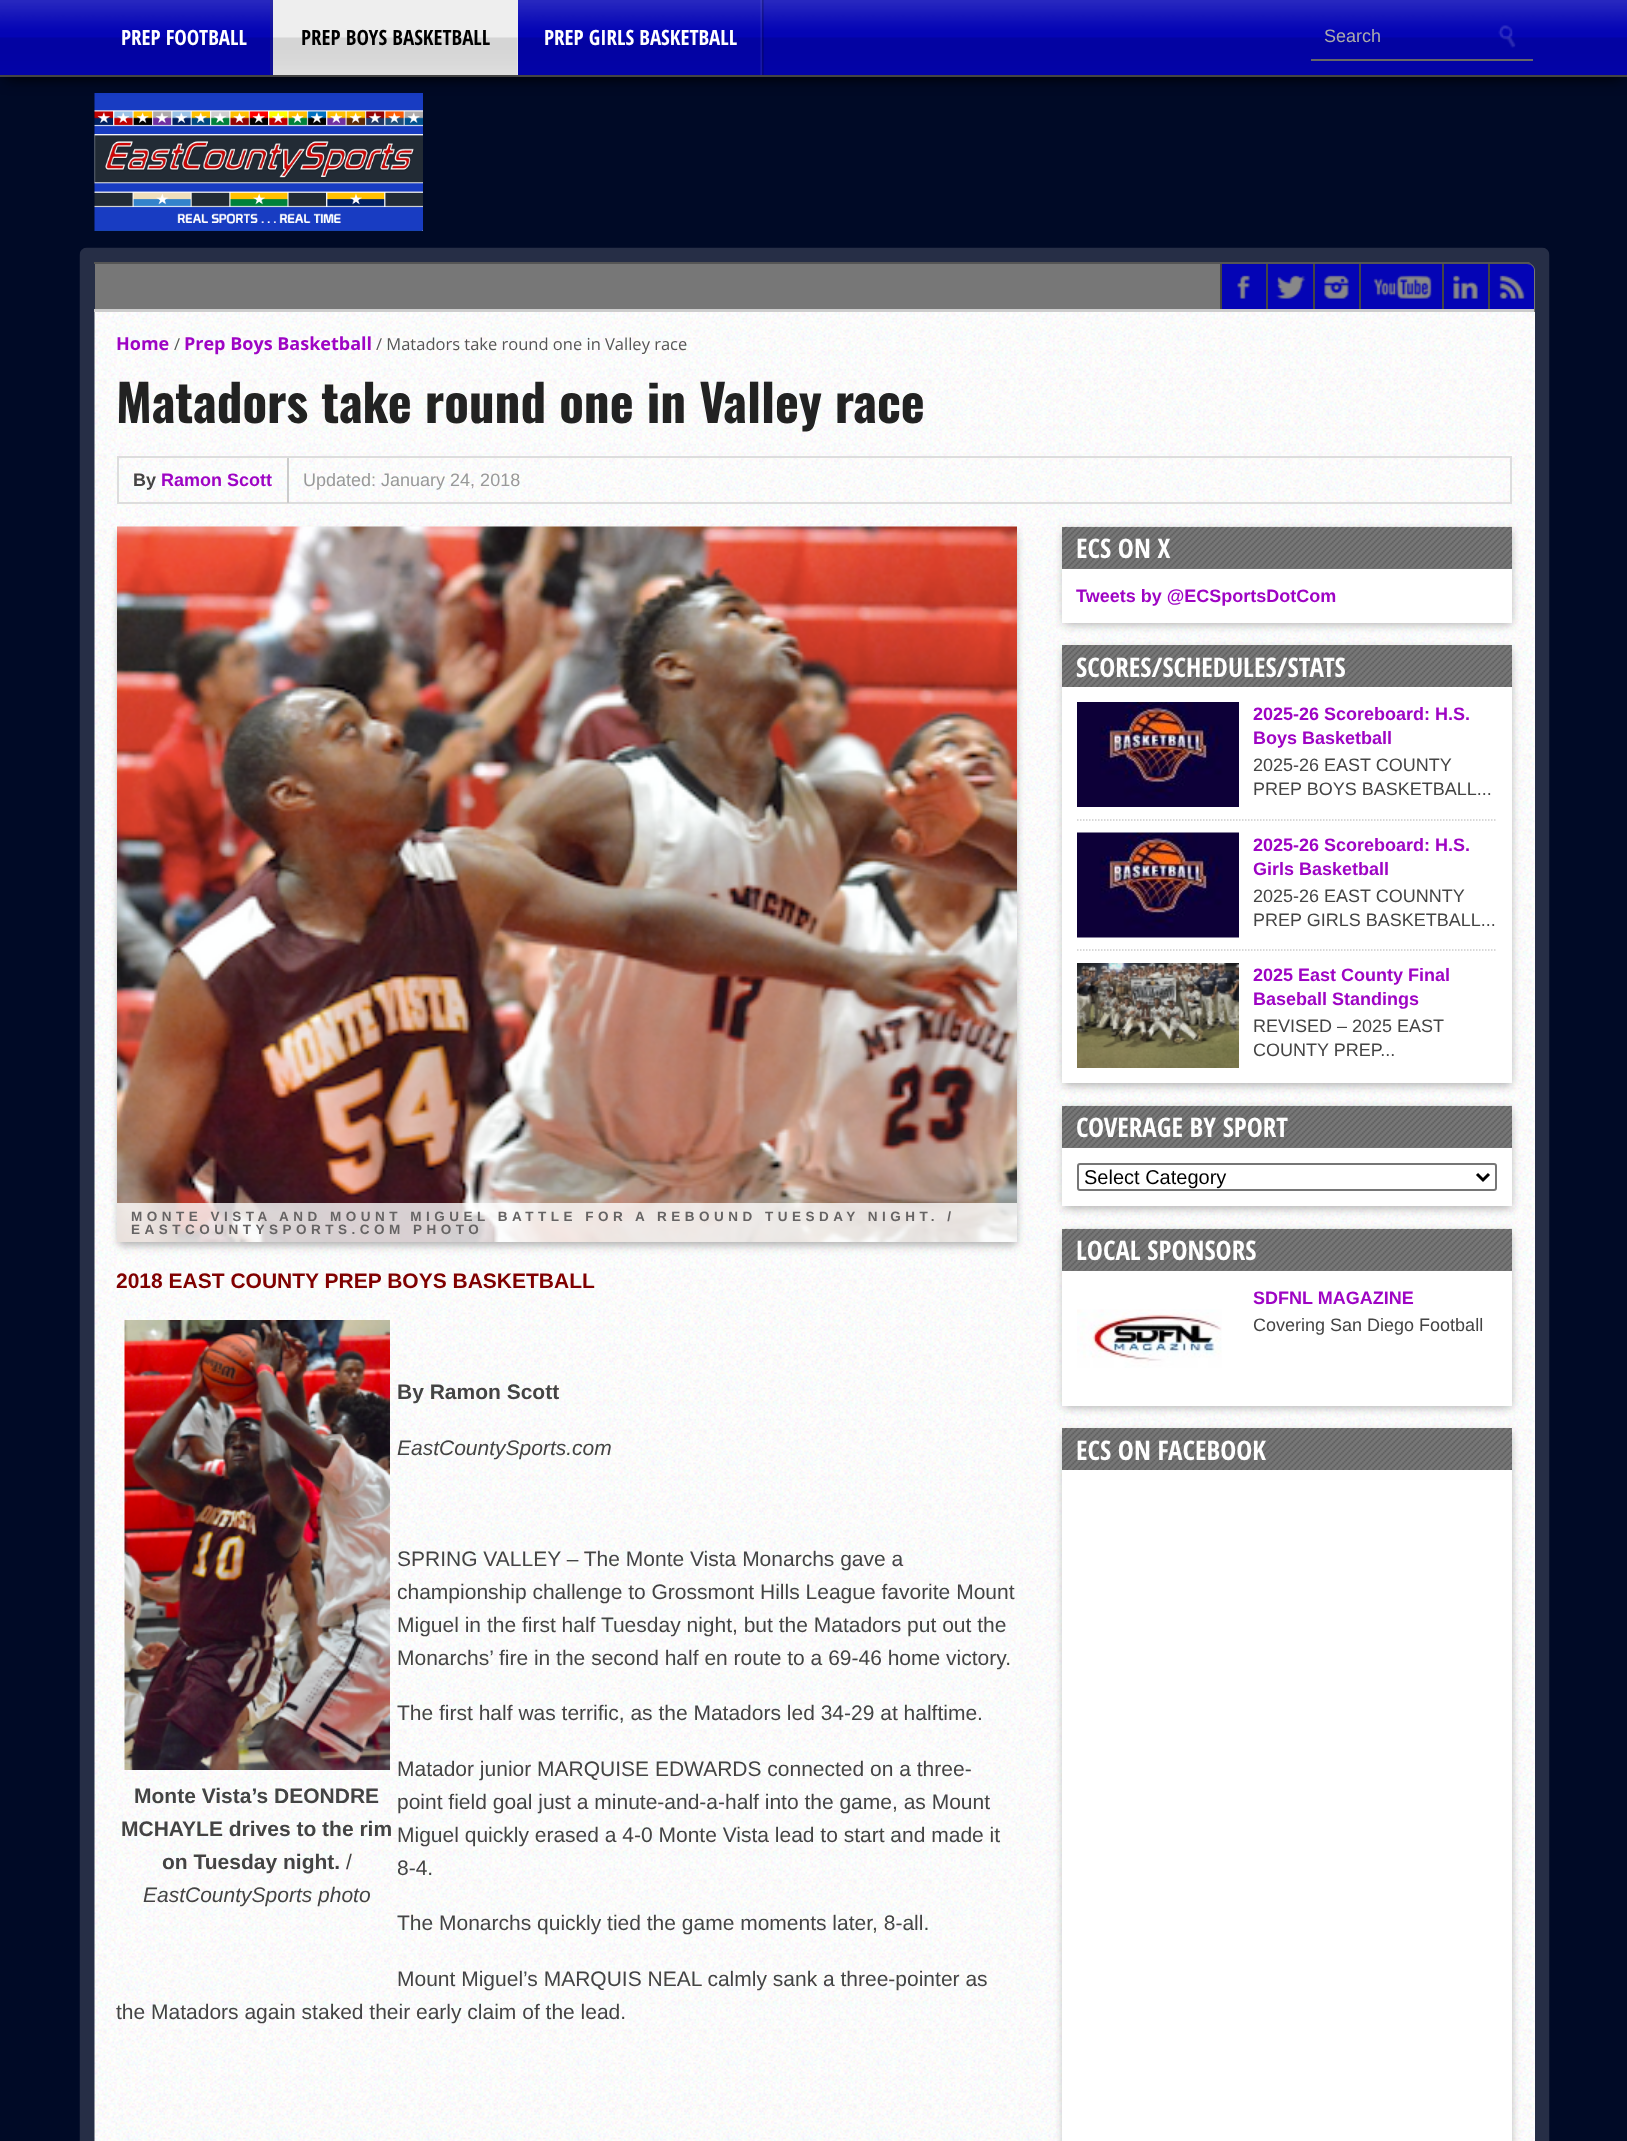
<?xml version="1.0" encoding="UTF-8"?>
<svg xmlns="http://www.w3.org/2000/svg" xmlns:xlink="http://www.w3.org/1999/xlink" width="1627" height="2141">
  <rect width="100%" height="100%" fill="#000a26" />
  <image x="94" y="93" width="329" height="138" xlink:href="image5.png" />
  <rect x="5" y="11" width="1618" height="67" fill="#000000" filter="blur(7.5px)" />
  <rect width="1627" height="75" fill="#0404b5" />
  <image x="0" y="0" width="1627" height="75" xlink:href="image1.png" />
  <rect y="75" width="1627" height="2" fill="#444444" />
  <rect x="270" width="3" height="75" fill="#414141" fill-opacity="0.2" />
  <rect x="273" width="245" height="75" fill="#eeeeee" />
  <image x="273" y="37" width="245" height="38" xlink:href="image2.png" />
  <image x="760" y="0" width="4" height="75" xlink:href="image3.png" />
  <image x="1498" y="25" width="18" height="23" xlink:href="image4.png" />
  <rect x="1311" y="59" width="222" height="2" fill="#666666" />
  <image x="79" y="247" width="1471" height="1894" xlink:href="image6.png" />
  <path d="M 95 263 h 1432 c 4.5 0 8 3.5 8 8 v 41 h -1440 z" fill="#777777" />
  <path d="M 94 262 v 2 h 1433 c 4 0 7 3 7 6 c 0 -3 -2 -6 -5 -8 z" fill="#555555" />
  <rect x="94" y="309" width="1440" height="3" fill="#cccccc" />
  <path d="M 1220 264 v 45 h 314 v -39 c 0 -3 -3 -6 -7 -6 z" fill="#0404b5" />
  <rect x="1220" y="264" width="2" height="45" fill="#444444" />
  <image x="1237" y="275" width="13" height="24" xlink:href="image7.png" />
  <rect x="1266" y="264" width="2" height="45" fill="#444444" />
  <image x="1276" y="275" width="30" height="24" xlink:href="image8.png" />
  <rect x="1313" y="264" width="2" height="45" fill="#444444" />
  <image x="1324" y="275" width="25" height="24" xlink:href="image9.png" />
  <rect x="1359" y="264" width="2" height="45" fill="#444444" />
  <image x="1373" y="275" width="59" height="24" xlink:href="image10.png" />
  <rect x="1442" y="264" width="2" height="45" fill="#444444" />
  <image x="1453" y="275" width="25" height="24" xlink:href="image11.png" />
  <rect x="1488" y="264" width="2" height="45" fill="#444444" />
  <image x="1499" y="275" width="26" height="24" xlink:href="image12.png" />
  <rect x="1534" y="312" width="1" height="1829" fill="#ffffff" />
  <image x="94" y="312" width="1441" height="1829" xlink:href="image13.png" />
  <rect x="118" y="457" width="1393" height="46" fill="none" stroke="#dddddd" stroke-width="2" />
  <rect x="287" y="458" width="2" height="45" fill="#cccccc" />
  <rect x="1064" y="531" width="447" height="93" fill="#aaaaaa" filter="blur(5px)" />
  <rect x="1062" y="569" width="450" height="54" fill="#ffffff" />
  <rect x="1062" y="527" width="450" height="42" fill="#777777" />
  <image x="1062" y="526" width="450" height="43" xlink:href="image14.png" />
  <rect x="1064" y="650" width="447" height="435" fill="#aaaaaa" filter="blur(5px)" />
  <rect x="1062" y="687" width="450" height="396" fill="#ffffff" />
  <rect x="1062" y="645" width="450" height="42" fill="#777777" />
  <image x="1062" y="645" width="450" height="42" xlink:href="image15.png" />
  <path d="M 1077 820 h 420" fill="none" stroke="#cccccc" stroke-width="1.5" stroke-dasharray="1.5 1.5" />
  <image x="1077" y="702" width="162" height="105" xlink:href="image16.png" />
  <path d="M 1077 950 h 420" fill="none" stroke="#cccccc" stroke-width="1.5" stroke-dasharray="1.5 1.5" />
  <image x="1077" y="832" width="162" height="106" xlink:href="image17.png" />
  <image x="1077" y="963" width="162" height="105" xlink:href="image18.png" />
  <rect x="1064" y="1110" width="447" height="98" fill="#aaaaaa" filter="blur(5px)" />
  <rect x="1062" y="1148" width="450" height="58" fill="#ffffff" />
  <rect x="1062" y="1106" width="450" height="42" fill="#777777" />
  <image x="1062" y="1105" width="450" height="43" xlink:href="image19.png" />
  <rect x="1078" y="1164" width="418" height="26" rx="2" fill="none" stroke="#767676" stroke-width="2" />
  <path d="M 1477 1174 l 6 6 l 6 -6" fill="none" stroke="#000000" stroke-width="3" />
  <rect x="1064" y="1233" width="447" height="174" fill="#aaaaaa" filter="blur(5px)" />
  <rect x="1062" y="1271" width="450" height="135" fill="#ffffff" />
  <rect x="1062" y="1229" width="450" height="42" fill="#777777" />
  <image x="1062" y="1228" width="450" height="43" xlink:href="image20.png" />
  <image x="1077" y="1309" width="145" height="59" xlink:href="image21.png" />
  <rect x="1064" y="1433" width="447" height="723" fill="#aaaaaa" filter="blur(5px)" />
  <rect x="1062" y="1470" width="450" height="671" fill="#ffffff" />
  <rect x="1062" y="1428" width="450" height="42" fill="#777777" />
  <image x="1062" y="1428" width="450" height="42" xlink:href="image15.png" />
  <rect x="119" y="533" width="897" height="712" fill="#aaaaaa" filter="blur(4px)" />
  <image x="117" y="526" width="900" height="716" xlink:href="image22.png" />
  <rect x="117" y="1203" width="900" height="39" fill="#ffffff" fill-opacity="0.8" />
  <image x="124" y="1320" width="266" height="450" xlink:href="image23.png" />
  <text x="121" y="45" style="font-family: Open Sans Condensed; font-size: 21px; font-weight: bold; fill: #ffffff">PREP FOOTBALL</text>
  <text x="301" y="45" style="font-family: Open Sans Condensed; font-size: 21px; font-weight: bold; fill: #000000">PREP BOYS BASKETBALL</text>
  <text x="544" y="45" style="font-family: Open Sans Condensed; font-size: 21px; font-weight: bold; fill: #ffffff">PREP GIRLS BASKETBALL</text>
  <text x="1324" y="42" style="font-family: Liberation Sans; font-size: 18px; fill: #aaaaaa">Search</text>
  <text x="116" y="350" style="font-family: Open Sans; font-size: 18px; font-weight: bold; fill: #9e04c4">Home</text>
  <text x="174" y="350" style="font-family: Open Sans; font-size: 16.5px; fill: #555555">/</text>
  <text x="184" y="350" style="font-family: Open Sans; font-size: 18px; font-weight: bold; fill: #9e04c4">Prep Boys Basketball</text>
  <text x="376" y="350" style="font-family: Open Sans; font-size: 16.5px; fill: #555555">/ Matadors take round one in Valley race</text>
  <text x="116" y="423" style="font-family: Oswald; font-size: 51px; font-weight: bold; fill: #222222">Matadors take round one in Valley race</text>
  <text x="133" y="486" style="font-family: Liberation Sans; font-size: 18px; font-weight: bold; fill: #444444">By</text>
  <text x="161" y="486" style="font-family: Liberation Sans; font-size: 18px; font-weight: bold; fill: #9e04c4">Ramon Scott</text>
  <text x="303" y="486" style="font-family: Liberation Sans; font-size: 18px; fill: #999999">Updated: January 24, 2018</text>
  <text x="1076" y="558" style="font-family: Open Sans Condensed; font-size: 27px; font-weight: bold; fill: #ffffff">ECS ON X</text>
  <text x="1076" y="602" style="font-family: Liberation Sans; font-size: 18px; font-weight: bold; fill: #9e04c4">Tweets by @ECSportsDotCom</text>
  <text x="1076" y="677" style="font-family: Open Sans Condensed; font-size: 27px; font-weight: bold; fill: #ffffff">SCORES/SCHEDULES/STATS</text>
  <text x="1253" y="720" style="font-family: Liberation Sans; font-size: 18px; font-weight: bold; fill: #9e04c4">2025-26 Scoreboard: H.S.</text>
  <text x="1253" y="744" style="font-family: Liberation Sans; font-size: 18px; font-weight: bold; fill: #9e04c4">Boys Basketball</text>
  <text x="1253" y="771" style="font-family: Liberation Sans; font-size: 18px; fill: #444444">2025-26 EAST COUNTY</text>
  <text x="1253" y="795" style="font-family: Liberation Sans; font-size: 18px; fill: #444444">PREP BOYS BASKETBALL...</text>
  <text x="1253" y="851" style="font-family: Liberation Sans; font-size: 18px; font-weight: bold; fill: #9e04c4">2025-26 Scoreboard: H.S.</text>
  <text x="1253" y="875" style="font-family: Liberation Sans; font-size: 18px; font-weight: bold; fill: #9e04c4">Girls Basketball</text>
  <text x="1253" y="902" style="font-family: Liberation Sans; font-size: 18px; fill: #444444">2025-26 EAST COUNNTY</text>
  <text x="1253" y="926" style="font-family: Liberation Sans; font-size: 18px; fill: #444444">PREP GIRLS BASKETBALL...</text>
  <text x="1253" y="981" style="font-family: Liberation Sans; font-size: 18px; font-weight: bold; fill: #9e04c4">2025 East County Final</text>
  <text x="1253" y="1005" style="font-family: Liberation Sans; font-size: 18px; font-weight: bold; fill: #9e04c4">Baseball Standings</text>
  <text x="1253" y="1032" style="font-family: Liberation Sans; font-size: 18px; fill: #444444">REVISED – 2025 EAST</text>
  <text x="1253" y="1056" style="font-family: Liberation Sans; font-size: 18px; fill: #444444">COUNTY PREP...</text>
  <text x="1076" y="1137" style="font-family: Open Sans Condensed; font-size: 27px; font-weight: bold; fill: #ffffff">COVERAGE BY SPORT</text>
  <text x="1084" y="1184" style="font-family: Liberation Sans; font-size: 20px; fill: #000000">Select Category</text>
  <text x="1076" y="1260" style="font-family: Open Sans Condensed; font-size: 27px; font-weight: bold; fill: #ffffff">LOCAL SPONSORS</text>
  <text x="1253" y="1304" style="font-family: Liberation Sans; font-size: 18px; font-weight: bold; fill: #9e04c4">SDFNL MAGAZINE</text>
  <text x="1253" y="1331" style="font-family: Liberation Sans; font-size: 18px; fill: #444444">Covering San Diego Football</text>
  <text x="1076" y="1460" style="font-family: Open Sans Condensed; font-size: 27px; font-weight: bold; fill: #ffffff">ECS ON FACEBOOK</text>
  <text x="131" y="1221" style="font-family: Liberation Sans; font-size: 13.5px; font-weight: bold; letter-spacing: 4.5px; fill: #656363">MONTE VISTA AND MOUNT MIGUEL BATTLE FOR A REBOUND TUESDAY NIGHT. /</text>
  <text x="131" y="1234" style="font-family: Liberation Sans; font-size: 13.5px; font-weight: bold; letter-spacing: 4.5px; fill: #656363">EASTCOUNTYSPORTS.COM PHOTO</text>
  <text x="116" y="1288" style="font-family: Liberation Sans; font-size: 21px; font-weight: bold; fill: #800000">2018 EAST COUNTY PREP BOYS BASKETBALL</text>
  <text x="397" y="1399" style="font-family: Liberation Sans; font-size: 21px; font-weight: bold; fill: #444444">By Ramon Scott</text>
  <text x="397" y="1455" style="font-family: Liberation Sans; font-size: 21px; font-style: italic; fill: #444444">EastCountySports.com</text>
  <text x="397" y="1566" style="font-family: Liberation Sans; font-size: 21px; fill: #444444">SPRING VALLEY – The Monte Vista Monarchs gave a</text>
  <text x="397" y="1599" style="font-family: Liberation Sans; font-size: 21px; fill: #444444">championship challenge to Grossmont Hills League favorite Mount</text>
  <text x="397" y="1632" style="font-family: Liberation Sans; font-size: 21px; fill: #444444">Miguel in the first half Tuesday night, but the Matadors put out the</text>
  <text x="397" y="1665" style="font-family: Liberation Sans; font-size: 21px; fill: #444444">Monarchs’ fire in the second half en route to a 69-46 home victory.</text>
  <text x="397" y="1720" style="font-family: Liberation Sans; font-size: 21px; fill: #444444">The first half was terrific, as the Matadors led 34-29 at halftime.</text>
  <text x="134" y="1803" style="font-family: Liberation Sans; font-size: 21px; font-weight: bold; fill: #444444">Monte Vista’s DEONDRE</text>
  <text x="121" y="1836" style="font-family: Liberation Sans; font-size: 21px; font-weight: bold; fill: #444444">MCHAYLE drives to the rim</text>
  <text x="162" y="1869" style="font-family: Liberation Sans; font-size: 21px; font-weight: bold; fill: #444444">on Tuesday night.</text>
  <text x="346" y="1869" style="font-family: Liberation Sans; font-size: 21px; fill: #444444">/</text>
  <text x="143" y="1902" style="font-family: Liberation Sans; font-size: 21px; font-style: italic; fill: #444444">EastCountySports photo</text>
  <text x="397" y="1776" style="font-family: Liberation Sans; font-size: 21px; fill: #444444">Matador junior MARQUISE EDWARDS connected on a three-</text>
  <text x="397" y="1809" style="font-family: Liberation Sans; font-size: 21px; fill: #444444">point field goal just a minute-and-a-half into the game, as Mount</text>
  <text x="397" y="1842" style="font-family: Liberation Sans; font-size: 21px; fill: #444444">Miguel quickly erased a 4-0 Monte Vista lead to start and made it</text>
  <text x="397" y="1875" style="font-family: Liberation Sans; font-size: 21px; fill: #444444">8-4.</text>
  <text x="397" y="1930" style="font-family: Liberation Sans; font-size: 21px; fill: #444444">The Monarchs quickly tied the game moments later, 8-all.</text>
  <text x="397" y="1986" style="font-family: Liberation Sans; font-size: 21px; fill: #444444">Mount Miguel’s MARQUIS NEAL calmly sank a three-pointer as</text>
  <text x="116" y="2019" style="font-family: Liberation Sans; font-size: 21px; fill: #444444">the Matadors again staked their early claim of the lead.</text>
</svg>
